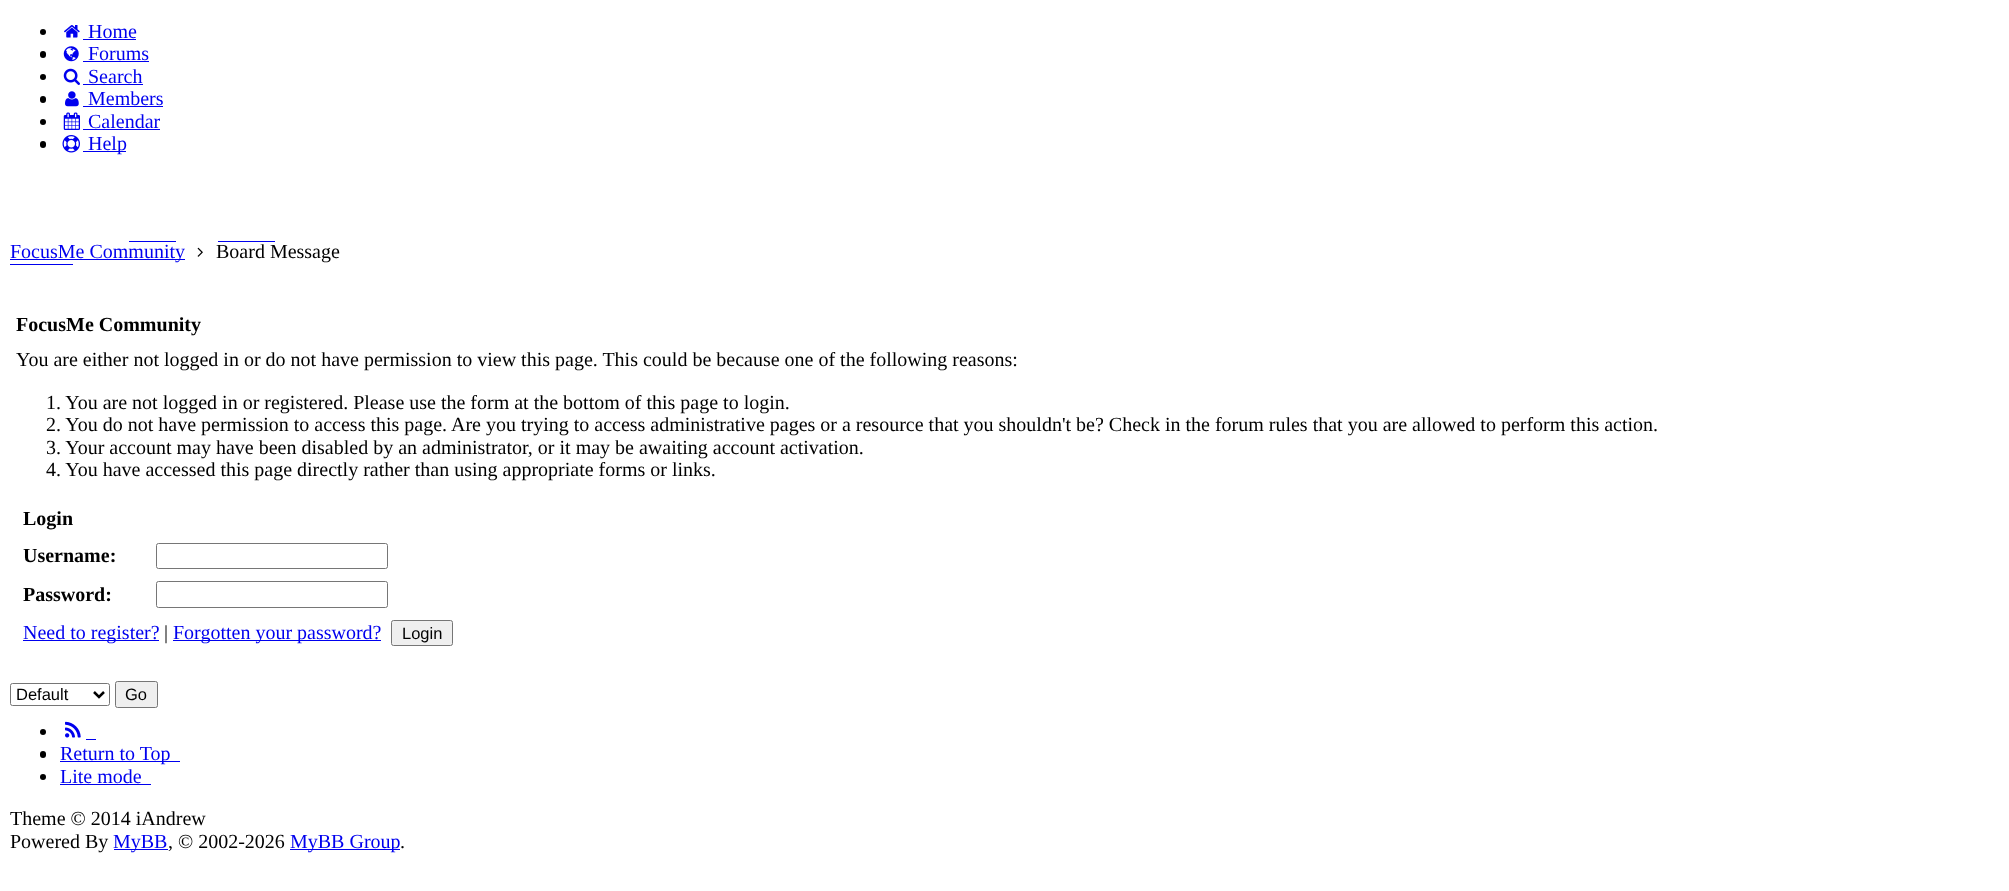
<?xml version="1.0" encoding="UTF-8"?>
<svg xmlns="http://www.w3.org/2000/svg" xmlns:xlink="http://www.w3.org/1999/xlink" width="2009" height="891">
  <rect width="100%" height="100%" fill="#ffffff" />
  <circle cx="43" cy="32" r="3" fill="#000000" />
  <image x="64" y="25" width="16" height="13" xlink:href="image1.png" />
  <rect x="83" y="39" width="53" height="1" fill="#0000ee" />
  <rect x="40" y="51" width="6" height="7" rx="3" fill="#000000" />
  <image x="63" y="46" width="16" height="16" xlink:href="image2.png" />
  <rect x="83" y="61" width="66" height="1" fill="#0000ee" />
  <circle cx="43" cy="77" r="3" fill="#000000" />
  <image x="63" y="68" width="17" height="17" xlink:href="image3.png" />
  <rect x="83" y="84" width="60" height="1" fill="#0000ee" />
  <rect x="40" y="96" width="6" height="7" rx="3" fill="#000000" />
  <image x="65" y="91" width="14" height="16" xlink:href="image4.png" />
  <rect x="83" y="106" width="80" height="1" fill="#0000ee" />
  <circle cx="43" cy="122" r="3" fill="#000000" />
  <image x="63" y="112" width="17" height="18" xlink:href="image5.png" />
  <rect x="83" y="129" width="77" height="1" fill="#0000ee" />
  <rect x="40" y="141" width="6" height="7" rx="3" fill="#000000" />
  <image x="62" y="135" width="18" height="18" xlink:href="image6.png" />
  <rect x="83" y="151" width="43" height="1" fill="#0000ee" />
  <rect x="129" y="241" width="47" height="1" fill="#0000ee" />
  <rect x="218" y="241" width="57" height="1" fill="#0000ee" />
  <rect x="10" y="264" width="63" height="1" fill="#0000ee" />
  <rect x="10" y="259" width="175" height="1" fill="#0000ee" />
  <image x="197" y="247" width="6" height="10" xlink:href="image7.png" />
  <rect x="156.5" y="543.5" width="231" height="25" rx="2" fill="none" stroke="#767676" />
  <rect x="156.5" y="581.5" width="231" height="26" rx="2" fill="none" stroke="#767676" />
  <rect x="23" y="640" width="136" height="1" fill="#0000ee" />
  <rect x="173" y="640" width="208" height="1" fill="#0000ee" />
  <rect x="391.5" y="620.5" width="61" height="25" rx="2" fill="#efefef" stroke="#767676" />
  <rect x="10.5" y="683.5" width="99" height="22" rx="2" fill="none" stroke="#767676" />
  <path d="M 94 692 l 5 5 l 5 -5" fill="none" stroke="#000000" stroke-width="2.5" />
  <rect x="115.5" y="681.5" width="42" height="26" rx="2" fill="#efefef" stroke="#767676" />
  <circle cx="43" cy="732" r="3" fill="#000000" />
  <image x="65" y="721" width="16" height="17" xlink:href="image8.png" />
  <rect x="86" y="739" width="10" height="1" fill="#0000ee" />
  <rect x="40" y="751" width="6" height="7" rx="3" fill="#000000" />
  <rect x="60" y="761" width="120" height="1" fill="#0000ee" />
  <circle cx="43" cy="777" r="3" fill="#000000" />
  <rect x="60" y="784" width="91" height="1" fill="#0000ee" />
  <rect x="114" y="849" width="54" height="1" fill="#0000ee" />
  <rect x="290" y="849" width="110" height="1" fill="#0000ee" />
  <text x="88" y="38" style="font-family: Liberation Serif; font-size: 20px; fill: #0000ee">Home</text>
  <text x="88" y="60" style="font-family: Liberation Serif; font-size: 20px; fill: #0000ee">Forums</text>
  <text x="88" y="83" style="font-family: Liberation Serif; font-size: 20px; fill: #0000ee">Search</text>
  <text x="88" y="105" style="font-family: Liberation Serif; font-size: 20px; fill: #0000ee">Members</text>
  <text x="88" y="128" style="font-family: Liberation Serif; font-size: 20px; fill: #0000ee">Calendar</text>
  <text x="88" y="150" style="font-family: Liberation Serif; font-size: 20px; fill: #0000ee">Help</text>
  <text x="10" y="258" style="font-family: Liberation Serif; font-size: 20px; fill: #0000ee">FocusMe Community</text>
  <text x="216" y="258" style="font-family: Liberation Serif; font-size: 20px; fill: #000000">Board Message</text>
  <text x="16" y="331" style="font-family: Liberation Serif; font-size: 20px; font-weight: bold; fill: #000000">FocusMe Community</text>
  <text x="16" y="366" style="font-family: Liberation Serif; font-size: 20px; fill: #000000">You are either not logged in or do not have permission to view this page. This could be because one of the following reasons:</text>
  <text x="46" y="409" style="font-family: Liberation Serif; font-size: 20px; fill: #000000">1. You are not logged in or registered. Please use the form at the bottom of this page to login.</text>
  <text x="46" y="431" style="font-family: Liberation Serif; font-size: 20px; fill: #000000">2. You do not have permission to access this page. Are you trying to access administrative pages or a resource that you shouldn't be? Check in the forum rules that you are allowed to perform this action.</text>
  <text x="46" y="454" style="font-family: Liberation Serif; font-size: 20px; fill: #000000">3. Your account may have been disabled by an administrator, or it may be awaiting account activation.</text>
  <text x="46" y="476" style="font-family: Liberation Serif; font-size: 20px; fill: #000000">4. You have accessed this page directly rather than using appropriate forms or links.</text>
  <text x="23" y="525" style="font-family: Liberation Serif; font-size: 20px; font-weight: bold; fill: #000000">Login</text>
  <text x="23" y="562" style="font-family: Liberation Serif; font-size: 20px; font-weight: bold; fill: #000000">Username:</text>
  <text x="23" y="601" style="font-family: Liberation Serif; font-size: 20px; font-weight: bold; fill: #000000">Password:</text>
  <text x="23" y="639" style="font-family: Liberation Serif; font-size: 20px; fill: #0000ee">Need to register?</text>
  <text x="164" y="639" style="font-family: Liberation Serif; font-size: 20px; fill: #000000">|</text>
  <text x="173" y="639" style="font-family: Liberation Serif; font-size: 20px; fill: #0000ee">Forgotten your password?</text>
  <text x="402" y="639" style="font-family: Liberation Sans; font-size: 16.5px; fill: #000000">Login</text>
  <text x="16" y="700" style="font-family: Liberation Sans; font-size: 16.5px; fill: #000000">Default</text>
  <text x="125" y="700" style="font-family: Liberation Sans; font-size: 16.5px; fill: #000000">Go</text>
  <text x="60" y="760" style="font-family: Liberation Serif; font-size: 20px; fill: #0000ee">Return to Top</text>
  <text x="60" y="783" style="font-family: Liberation Serif; font-size: 20px; fill: #0000ee">Lite mode</text>
  <text x="10" y="825" style="font-family: Liberation Serif; font-size: 20px; fill: #000000">Theme © 2014 iAndrew</text>
  <text x="10" y="848" style="font-family: Liberation Serif; font-size: 20px; fill: #000000">Powered By</text>
  <text x="113" y="848" style="font-family: Liberation Serif; font-size: 20px; fill: #0000ee">MyBB</text>
  <text x="168" y="848" style="font-family: Liberation Serif; font-size: 20px; fill: #000000">, © 2002-2026</text>
  <text x="290" y="848" style="font-family: Liberation Serif; font-size: 20px; fill: #0000ee">MyBB Group</text>
  <text x="400" y="848" style="font-family: Liberation Serif; font-size: 20px; fill: #000000">.</text>
</svg>
